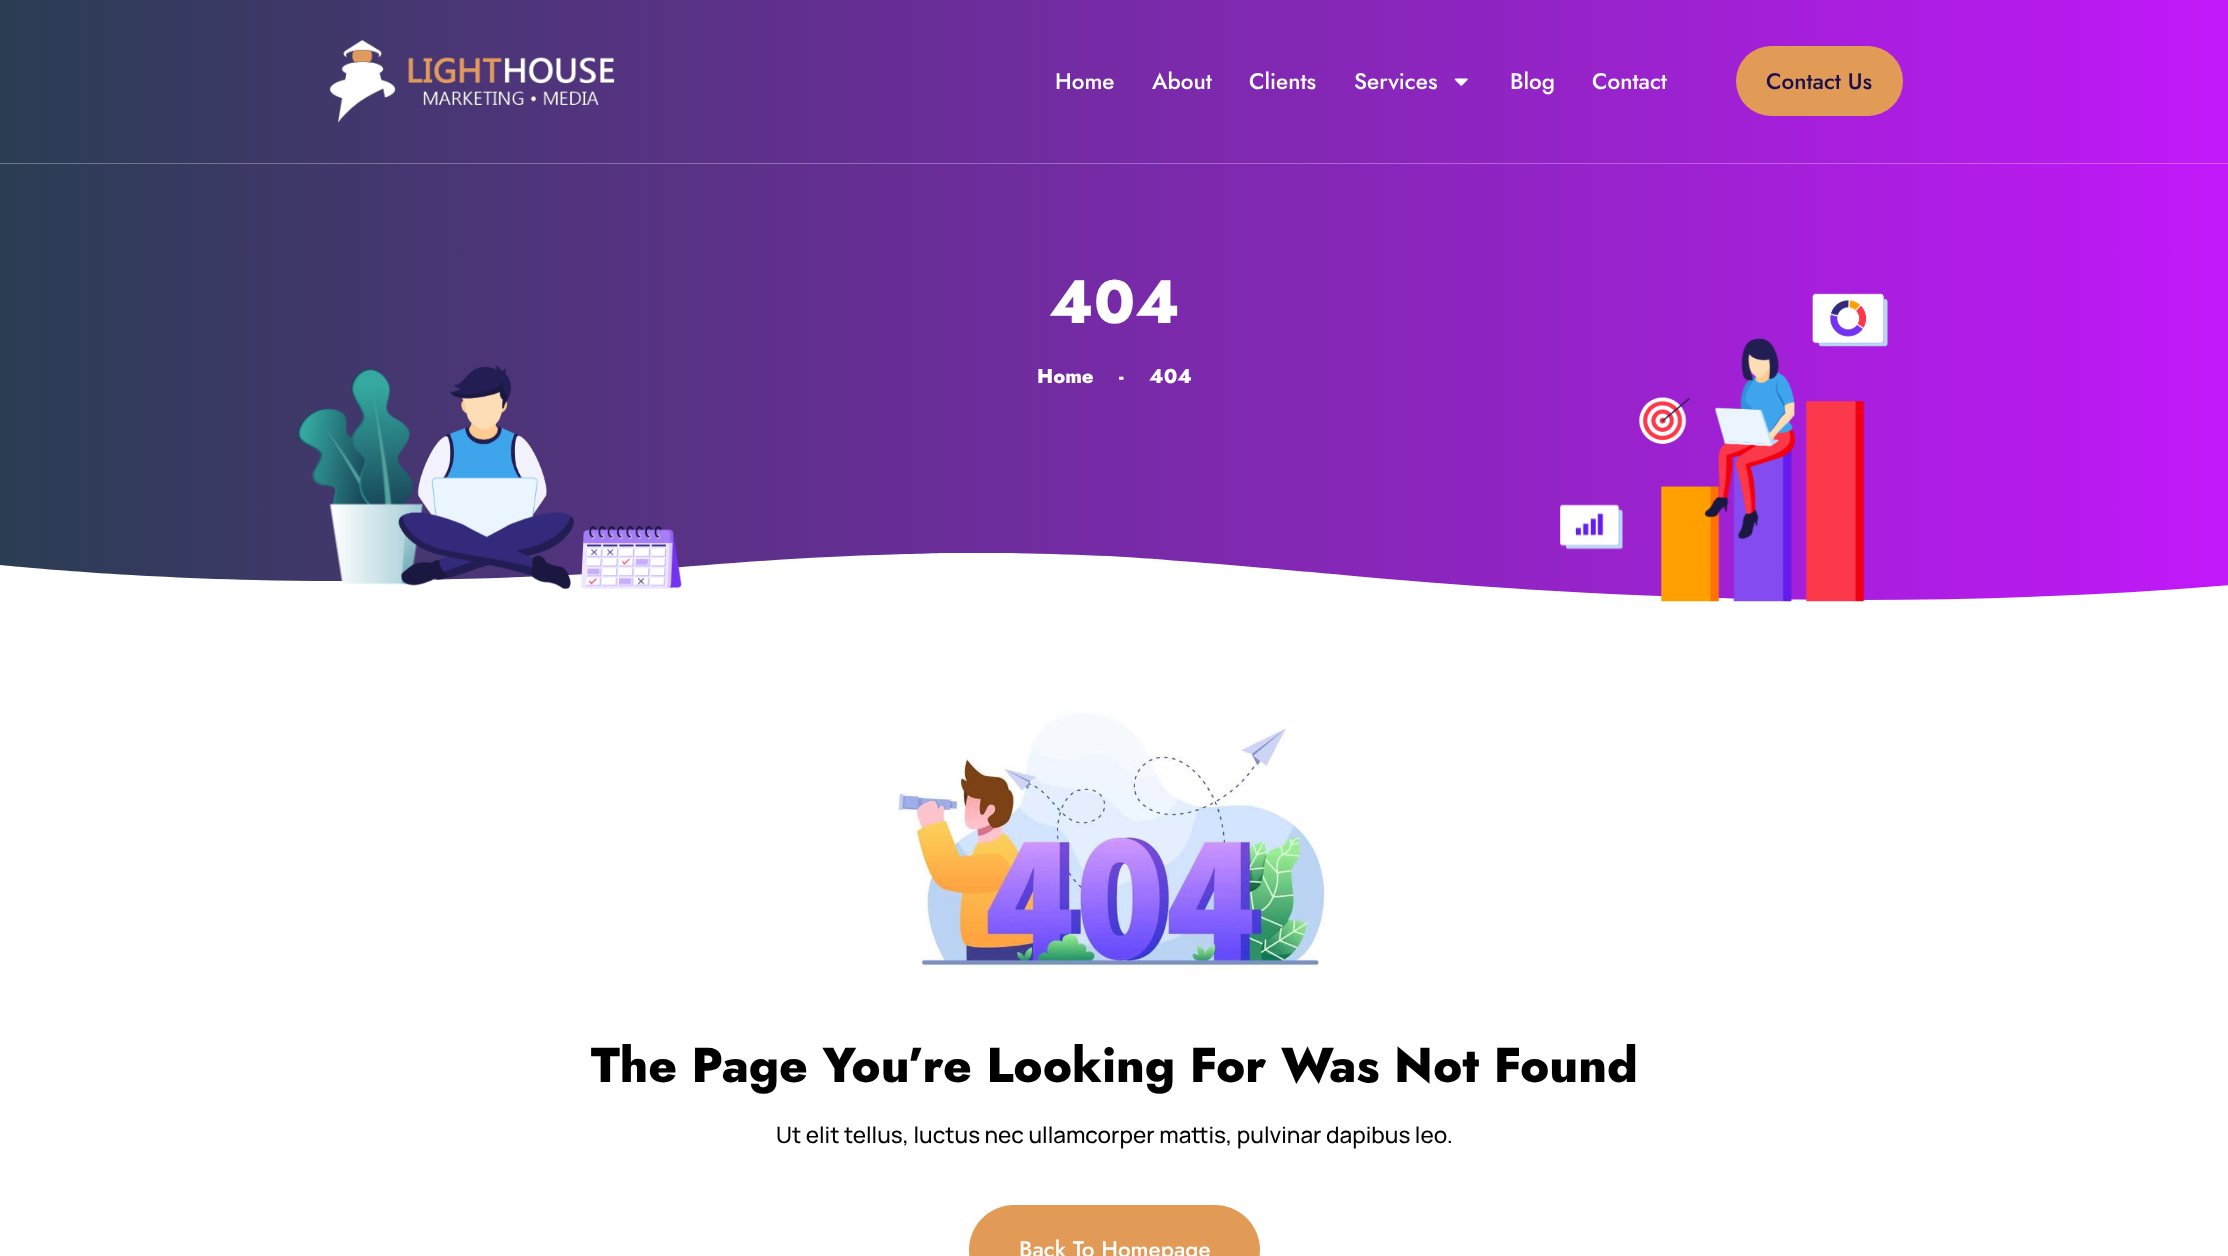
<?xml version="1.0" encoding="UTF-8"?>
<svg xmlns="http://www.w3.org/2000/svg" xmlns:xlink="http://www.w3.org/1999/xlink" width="2228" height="1256">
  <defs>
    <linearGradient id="g1" gradientUnits="userSpaceOnUse" x1="0" y1="289" x2="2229" y2="289"><stop offset="0" stop-color="#2a3d52" /><stop offset="1" stop-color="#c218fa" /></linearGradient>
    <linearGradient id="g2" gradientUnits="userSpaceOnUse" x1="0" y1="289" x2="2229" y2="289"><stop offset="0" stop-color="#6a7786" /><stop offset="1" stop-color="#d45dfc" /></linearGradient>
    <clipPath id="clip1"><rect y="553" width="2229" height="48" /></clipPath>
  </defs>
  <rect width="100%" height="100%" fill="#ffffff" />
  <rect width="2228" height="600" fill="url(#g1)" />
  <image x="329" y="39" width="286" height="84" xlink:href="image1.png" />
  <image x="1454" y="78" width="14" height="8" xlink:href="image2.png" />
  <rect x="1736" y="46" width="167" height="70" rx="35" fill="#e29b57" />
  <rect y="163" width="2228" height="1" fill="url(#g2)" />
  <g clip-path="url(#clip1)">
    <path d="M 1763 599 c -132 -3 -261 -9 -430 -25 c -66 -6 -171 -15 -224 -18 c -52 -2 -117 -4 -168 -3 c -23 1 -51 1 -112 4 c -61 3 -130 8 -177 13 c -92 7 -212 10 -299 11 c -193 1 -353 -16 -353 -16 v 37 h 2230 v -17 c -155 13 -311 17 -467 14 z" fill="#ffffff" />
  </g>
  <image x="297" y="368" width="126" height="217" xlink:href="image3.png" />
  <image x="398" y="365" width="176" height="224" xlink:href="image4.png" />
  <image x="581" y="526" width="101" height="63" xlink:href="image5.png" />
  <image x="1812" y="293" width="76" height="54" xlink:href="image6.png" />
  <image x="1661" y="401" width="204" height="201" xlink:href="image10.png" />
  <image x="1639" y="397" width="51" height="47" xlink:href="image7.png" />
  <image x="1704" y="338" width="92" height="201" xlink:href="image8.png" />
  <image x="1560" y="504" width="63" height="46" xlink:href="image9.png" />
  <image x="895" y="711" width="430" height="260" xlink:href="image11.png" />
  <rect x="969" y="1205" width="291" height="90" rx="45" fill="#e29b57" />
  <text x="1055" y="89" style="font-family: Jost; font-size: 22.5px; font-weight: 500; fill: #ffffff">Home</text>
  <text x="1152" y="89" style="font-family: Jost; font-size: 22.5px; font-weight: 500; fill: #ffffff">About</text>
  <text x="1249" y="89" style="font-family: Jost; font-size: 22.5px; font-weight: 500; fill: #ffffff">Clients</text>
  <text x="1354" y="89" style="font-family: Jost; font-size: 22.5px; font-weight: 500; fill: #ffffff">Services</text>
  <text x="1510" y="89" style="font-family: Jost; font-size: 22.5px; font-weight: 500; fill: #ffffff">Blog</text>
  <text x="1592" y="89" style="font-family: Jost; font-size: 22.5px; font-weight: 500; fill: #ffffff">Contact</text>
  <text x="1766" y="89" style="font-family: Jost; font-size: 22.5px; font-weight: 500; fill: #190f4d">Contact Us</text>
  <text x="1049" y="323" style="font-family: Jost; font-size: 61px; font-weight: 800; fill: #ffffff">404</text>
  <text x="1037" y="383" style="font-family: Jost; font-size: 20px; font-weight: 800; fill: #ffffff">Home</text>
  <text x="1119" y="383" style="font-family: Jost; font-size: 20px; font-weight: 800; fill: #ffffff">-</text>
  <text x="1149" y="383" style="font-family: Jost; font-size: 20px; font-weight: 800; fill: #ffffff">404</text>
  <text x="591" y="1082" style="font-family: Jost; font-size: 48.8px; font-weight: 800; fill: #000000">The Page You’re Looking For Was Not Found</text>
  <text x="776" y="1143" style="font-family: Manrope; font-size: 22.5px; font-weight: 500; fill: #000000">Ut elit tellus, luctus nec ullamcorper mattis, pulvinar dapibus leo.</text>
  <text x="1019" y="1257" style="font-family: Jost; font-size: 22.5px; font-weight: 500; fill: #ffffff">Back To Homepage</text>
</svg>
